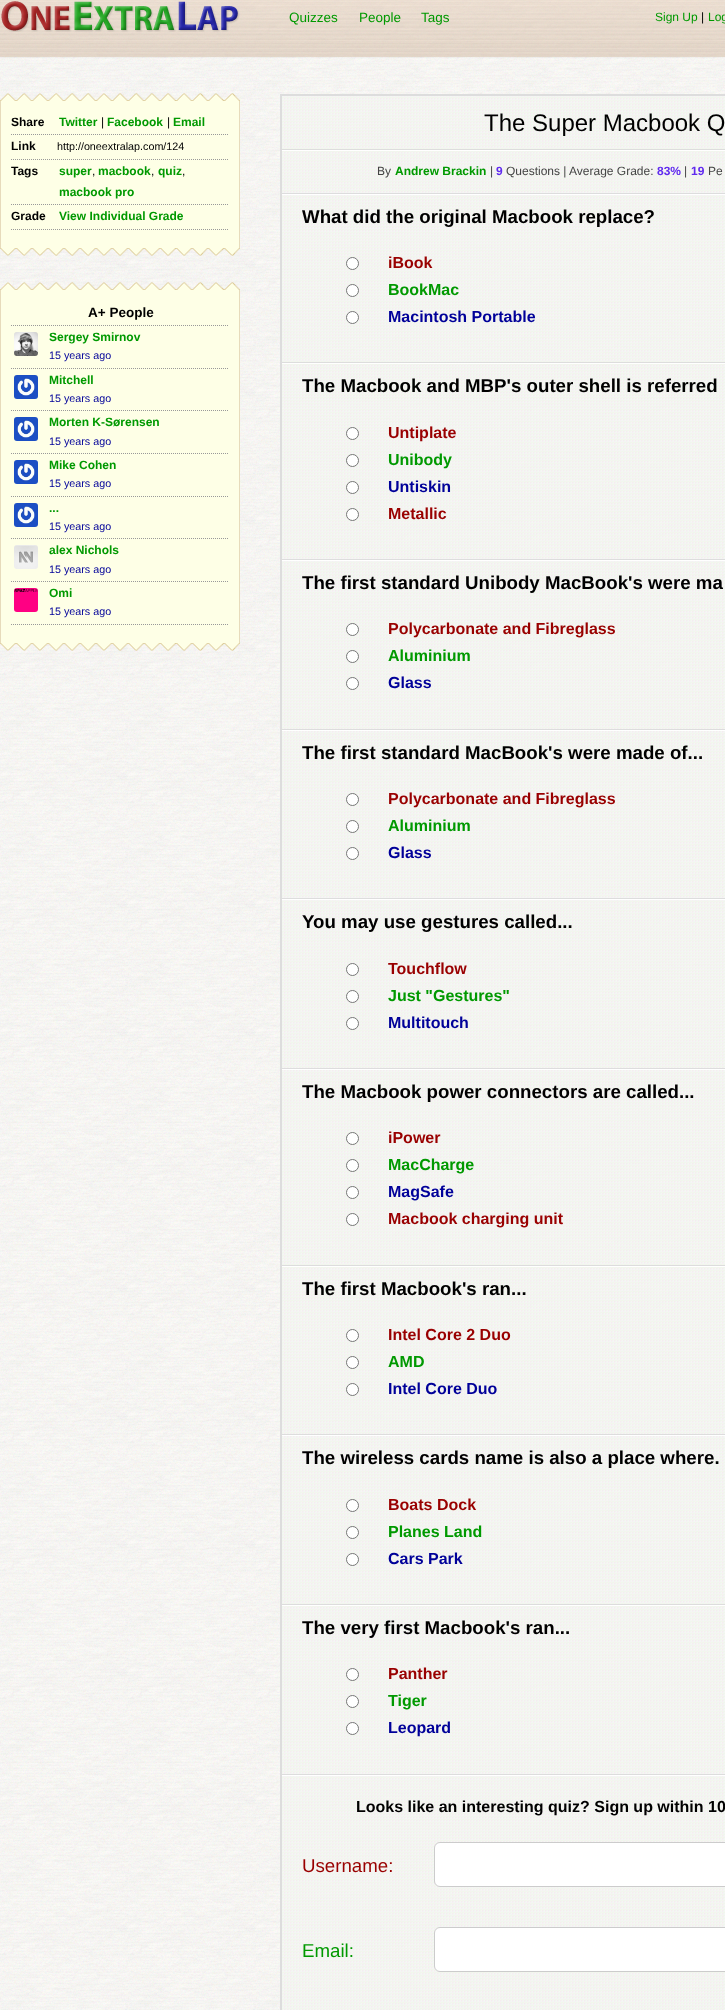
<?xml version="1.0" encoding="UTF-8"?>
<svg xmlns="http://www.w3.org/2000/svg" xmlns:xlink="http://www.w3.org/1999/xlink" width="725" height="2010">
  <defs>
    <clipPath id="clip1"><rect x="57" y="140" width="166" height="12" /></clipPath>
  </defs>
  <rect width="100%" height="100%" fill="#ffffff" />
  <image x="0" y="0" width="725" height="2010" xlink:href="image1.png" />
  <image x="0" y="0" width="725" height="58" xlink:href="image2.png" />
  <image x="1" y="1" width="239" height="31" xlink:href="image3.png" />
  <rect x="0.5" y="100.5" width="239" height="148" fill="#feffe6" stroke="#e7dbbb" />
  <image x="0" y="93" width="240" height="8" xlink:href="image4.png" />
  <path d="M 11 134.5 h 218" fill="none" stroke="#999999" stroke-dasharray="1 1" />
  <path d="M 11 159.5 h 218" fill="none" stroke="#999999" stroke-dasharray="1 1" />
  <path d="M 11 204.5 h 218" fill="none" stroke="#999999" stroke-dasharray="1 1" />
  <path d="M 11 229.5 h 218" fill="none" stroke="#999999" stroke-dasharray="1 1" />
  <image x="0" y="248" width="240" height="8" xlink:href="image5.png" />
  <rect x="0.5" y="289.5" width="239" height="354" fill="#feffe6" stroke="#e7dbbb" />
  <image x="0" y="282" width="240" height="8" xlink:href="image6.png" />
  <path d="M 11 325.5 h 218" fill="none" stroke="#999999" stroke-dasharray="1 1" />
  <path d="M 11 368.5 h 218" fill="none" stroke="#999999" stroke-dasharray="1 1" />
  <image x="14" y="332" width="24" height="24" xlink:href="image7.png" />
  <path d="M 11 410.5 h 218" fill="none" stroke="#999999" stroke-dasharray="1 1" />
  <image x="14" y="375" width="24" height="24" xlink:href="image8.png" />
  <path d="M 11 453.5 h 218" fill="none" stroke="#999999" stroke-dasharray="1 1" />
  <image x="14" y="417" width="24" height="24" xlink:href="image8.png" />
  <path d="M 11 496.5 h 218" fill="none" stroke="#999999" stroke-dasharray="1 1" />
  <image x="14" y="460" width="24" height="24" xlink:href="image8.png" />
  <path d="M 11 538.5 h 218" fill="none" stroke="#999999" stroke-dasharray="1 1" />
  <image x="14" y="503" width="24" height="24" xlink:href="image9.png" />
  <path d="M 11 581.5 h 218" fill="none" stroke="#999999" stroke-dasharray="1 1" />
  <image x="14" y="545" width="24" height="24" xlink:href="image10.png" />
  <path d="M 11 624.5 h 218" fill="none" stroke="#999999" stroke-dasharray="1 1" />
  <image x="14" y="588" width="24" height="24" xlink:href="image11.png" />
  <image x="0" y="643" width="240" height="8" xlink:href="image12.png" />
  <image x="282" y="96" width="443" height="1914" xlink:href="image13.png" />
  <rect x="280.5" y="94.5" width="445" height="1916" fill="none" stroke="#dddddd" />
  <rect x="281.5" y="95.5" width="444" height="54" fill="none" stroke="#dddddd" />
  <rect x="281" y="150" width="444" height="1" fill="#ffffff" />
  <rect x="281" y="193" width="444" height="1" fill="#dddddd" />
  <rect x="281" y="150" width="1" height="44" fill="#dddddd" />
  <rect x="281" y="194" width="444" height="1" fill="#ffffff" />
  <rect x="281" y="362" width="444" height="1" fill="#dddddd" />
  <rect x="281" y="194" width="1" height="169" fill="#dddddd" />
  <circle cx="352.5" cy="263.5" r="6" fill="#ffffff" stroke="#767676" />
  <circle cx="352.5" cy="290.5" r="6" fill="#ffffff" stroke="#767676" />
  <circle cx="352.5" cy="317.5" r="6" fill="#ffffff" stroke="#767676" />
  <rect x="281" y="363" width="444" height="1" fill="#ffffff" />
  <rect x="281" y="559" width="444" height="1" fill="#dddddd" />
  <rect x="281" y="363" width="1" height="197" fill="#dddddd" />
  <circle cx="352.5" cy="433.5" r="6" fill="#ffffff" stroke="#767676" />
  <circle cx="352.5" cy="460.5" r="6" fill="#ffffff" stroke="#767676" />
  <circle cx="352.5" cy="487.5" r="6" fill="#ffffff" stroke="#767676" />
  <circle cx="352.5" cy="514.5" r="6" fill="#ffffff" stroke="#767676" />
  <rect x="281" y="560" width="444" height="1" fill="#ffffff" />
  <rect x="281" y="729" width="444" height="1" fill="#dddddd" />
  <rect x="281" y="560" width="1" height="170" fill="#dddddd" />
  <circle cx="352.5" cy="629.5" r="6" fill="#ffffff" stroke="#767676" />
  <circle cx="352.5" cy="656.5" r="6" fill="#ffffff" stroke="#767676" />
  <circle cx="352.5" cy="683.5" r="6" fill="#ffffff" stroke="#767676" />
  <rect x="281" y="730" width="444" height="1" fill="#ffffff" />
  <rect x="281" y="898" width="444" height="1" fill="#dddddd" />
  <rect x="281" y="730" width="1" height="169" fill="#dddddd" />
  <circle cx="352.5" cy="799.5" r="6" fill="#ffffff" stroke="#767676" />
  <circle cx="352.5" cy="826.5" r="6" fill="#ffffff" stroke="#767676" />
  <circle cx="352.5" cy="853.5" r="6" fill="#ffffff" stroke="#767676" />
  <rect x="281" y="899" width="444" height="1" fill="#ffffff" />
  <rect x="281" y="1068" width="444" height="1" fill="#dddddd" />
  <rect x="281" y="899" width="1" height="170" fill="#dddddd" />
  <circle cx="352.5" cy="969.5" r="6" fill="#ffffff" stroke="#767676" />
  <circle cx="352.5" cy="996.5" r="6" fill="#ffffff" stroke="#767676" />
  <circle cx="352.5" cy="1023.5" r="6" fill="#ffffff" stroke="#767676" />
  <rect x="281" y="1069" width="444" height="1" fill="#ffffff" />
  <rect x="281" y="1265" width="444" height="1" fill="#dddddd" />
  <rect x="281" y="1069" width="1" height="197" fill="#dddddd" />
  <circle cx="352.5" cy="1138.5" r="6" fill="#ffffff" stroke="#767676" />
  <circle cx="352.5" cy="1165.5" r="6" fill="#ffffff" stroke="#767676" />
  <circle cx="352.5" cy="1192.5" r="6" fill="#ffffff" stroke="#767676" />
  <circle cx="352.5" cy="1219.5" r="6" fill="#ffffff" stroke="#767676" />
  <rect x="281" y="1266" width="444" height="1" fill="#ffffff" />
  <rect x="281" y="1434" width="444" height="1" fill="#dddddd" />
  <rect x="281" y="1266" width="1" height="169" fill="#dddddd" />
  <circle cx="352.5" cy="1335.5" r="6" fill="#ffffff" stroke="#767676" />
  <circle cx="352.5" cy="1362.5" r="6" fill="#ffffff" stroke="#767676" />
  <circle cx="352.5" cy="1389.5" r="6" fill="#ffffff" stroke="#767676" />
  <rect x="281" y="1435" width="444" height="1" fill="#ffffff" />
  <rect x="281" y="1604" width="444" height="1" fill="#dddddd" />
  <rect x="281" y="1435" width="1" height="170" fill="#dddddd" />
  <circle cx="352.5" cy="1505.5" r="6" fill="#ffffff" stroke="#767676" />
  <circle cx="352.5" cy="1532.5" r="6" fill="#ffffff" stroke="#767676" />
  <circle cx="352.5" cy="1559.5" r="6" fill="#ffffff" stroke="#767676" />
  <rect x="281" y="1605" width="444" height="1" fill="#ffffff" />
  <rect x="281" y="1774" width="444" height="1" fill="#dddddd" />
  <rect x="281" y="1605" width="1" height="170" fill="#dddddd" />
  <circle cx="352.5" cy="1674.5" r="6" fill="#ffffff" stroke="#767676" />
  <circle cx="352.5" cy="1701.5" r="6" fill="#ffffff" stroke="#767676" />
  <circle cx="352.5" cy="1728.5" r="6" fill="#ffffff" stroke="#767676" />
  <rect x="281" y="1775" width="444" height="1" fill="#ffffff" />
  <rect x="281" y="1775" width="1" height="235" fill="#dddddd" />
  <rect x="434.5" y="1842.5" width="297" height="44" rx="5.5" fill="#ffffff" stroke="#cccccc" />
  <rect x="434.5" y="1927.5" width="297" height="44" rx="5.5" fill="#ffffff" stroke="#cccccc" />
  <text x="289" y="22" style="font-family: Liberation Sans; font-size: 13.5px; fill: #009900">Quizzes</text>
  <text x="359" y="22" style="font-family: Liberation Sans; font-size: 13.5px; fill: #009900">People</text>
  <text x="421" y="22" style="font-family: Liberation Sans; font-size: 13.5px; fill: #009900">Tags</text>
  <text x="655" y="21" style="font-family: Liberation Sans; font-size: 12px; fill: #009900">Sign Up</text>
  <text x="701" y="21" style="font-family: Liberation Sans; font-size: 12px; fill: #000000">|</text>
  <text x="708" y="21" style="font-family: Liberation Sans; font-size: 12px; fill: #009900">Log</text>
  <text x="11" y="126" style="font-family: Liberation Sans; font-size: 12px; font-weight: bold; fill: #000000">Share</text>
  <text x="59" y="126" style="font-family: Liberation Sans; font-size: 12px; font-weight: bold; fill: #009900">Twitter</text>
  <text x="101" y="126" style="font-family: Liberation Sans; font-size: 12px; fill: #000000">|</text>
  <text x="107" y="126" style="font-family: Liberation Sans; font-size: 12px; font-weight: bold; fill: #009900">Facebook</text>
  <text x="167" y="126" style="font-family: Liberation Sans; font-size: 12px; fill: #000000">|</text>
  <text x="173" y="126" style="font-family: Liberation Sans; font-size: 12px; font-weight: bold; fill: #009900">Email</text>
  <text x="11" y="150" style="font-family: Liberation Sans; font-size: 12px; font-weight: bold; fill: #000000">Link</text>
  <g clip-path="url(#clip1)">
    <text x="57" y="150" style="font-family: Liberation Sans; font-size: 10.75px; fill: #000000">http://oneextralap.com/124</text>
  </g>
  <text x="11" y="175" style="font-family: Liberation Sans; font-size: 12px; font-weight: bold; fill: #000000">Tags</text>
  <text x="59" y="175" style="font-family: Liberation Sans; font-size: 12px; font-weight: bold; fill: #009900">super</text>
  <text x="92" y="175" style="font-family: Liberation Sans; font-size: 12px; fill: #000000">,</text>
  <text x="98" y="175" style="font-family: Liberation Sans; font-size: 12px; font-weight: bold; fill: #009900">macbook</text>
  <text x="151" y="175" style="font-family: Liberation Sans; font-size: 12px; fill: #000000">,</text>
  <text x="158" y="175" style="font-family: Liberation Sans; font-size: 12px; font-weight: bold; fill: #009900">quiz</text>
  <text x="182" y="175" style="font-family: Liberation Sans; font-size: 12px; fill: #000000">,</text>
  <text x="59" y="196" style="font-family: Liberation Sans; font-size: 12px; font-weight: bold; fill: #009900">macbook pro</text>
  <text x="11" y="220" style="font-family: Liberation Sans; font-size: 12px; font-weight: bold; fill: #000000">Grade</text>
  <text x="59" y="220" style="font-family: Liberation Sans; font-size: 12px; font-weight: bold; fill: #009900">View Individual Grade</text>
  <text x="88" y="317" style="font-family: Liberation Sans; font-size: 13.5px; font-weight: bold; fill: #000000">A+ People</text>
  <text x="49" y="341" style="font-family: Liberation Sans; font-size: 12px; font-weight: bold; fill: #009900">Sergey Smirnov</text>
  <text x="49" y="359" style="font-family: Liberation Sans; font-size: 10.75px; fill: #000099">15 years ago</text>
  <text x="49" y="384" style="font-family: Liberation Sans; font-size: 12px; font-weight: bold; fill: #009900">Mitchell</text>
  <text x="49" y="402" style="font-family: Liberation Sans; font-size: 10.75px; fill: #000099">15 years ago</text>
  <text x="49" y="426" style="font-family: Liberation Sans; font-size: 12px; font-weight: bold; fill: #009900">Morten K-Sørensen</text>
  <text x="49" y="445" style="font-family: Liberation Sans; font-size: 10.75px; fill: #000099">15 years ago</text>
  <text x="49" y="469" style="font-family: Liberation Sans; font-size: 12px; font-weight: bold; fill: #009900">Mike Cohen</text>
  <text x="49" y="487" style="font-family: Liberation Sans; font-size: 10.75px; fill: #000099">15 years ago</text>
  <text x="49" y="512" style="font-family: Liberation Sans; font-size: 12px; font-weight: bold; fill: #009900">...</text>
  <text x="49" y="530" style="font-family: Liberation Sans; font-size: 10.75px; fill: #000099">15 years ago</text>
  <text x="49" y="554" style="font-family: Liberation Sans; font-size: 12px; font-weight: bold; fill: #009900">alex Nichols</text>
  <text x="49" y="573" style="font-family: Liberation Sans; font-size: 10.75px; fill: #000099">15 years ago</text>
  <text x="49" y="597" style="font-family: Liberation Sans; font-size: 12px; font-weight: bold; fill: #009900">Omi</text>
  <text x="49" y="615" style="font-family: Liberation Sans; font-size: 10.75px; fill: #000099">15 years ago</text>
  <text x="484" y="131" style="font-family: Liberation Sans; font-size: 24px; fill: #000000">The Super Macbook Q</text>
  <text x="377" y="175" style="font-family: Liberation Sans; font-size: 12px; fill: #444444">By</text>
  <text x="395" y="175" style="font-family: Liberation Sans; font-size: 12px; font-weight: bold; fill: #009900">Andrew Brackin</text>
  <text x="490" y="175" style="font-family: Liberation Sans; font-size: 12px; fill: #444444">|</text>
  <text x="496" y="175" style="font-family: Liberation Sans; font-size: 12px; font-weight: bold; fill: #612bef">9</text>
  <text x="506" y="175" style="font-family: Liberation Sans; font-size: 12px; fill: #444444">Questions |</text>
  <text x="569" y="175" style="font-family: Liberation Sans; font-size: 12px; fill: #444444">Average Grade:</text>
  <text x="657" y="175" style="font-family: Liberation Sans; font-size: 12px; font-weight: bold; fill: #612bef">83%</text>
  <text x="684" y="175" style="font-family: Liberation Sans; font-size: 12px; fill: #444444">|</text>
  <text x="691" y="175" style="font-family: Liberation Sans; font-size: 12px; font-weight: bold; fill: #612bef">19</text>
  <text x="708" y="175" style="font-family: Liberation Sans; font-size: 12px; fill: #444444">Pe</text>
  <text x="302" y="223" style="font-family: Liberation Sans; font-size: 18.7px; font-weight: bold; fill: #000000">What did the original Macbook replace?</text>
  <text x="388" y="268" style="font-family: Liberation Sans; font-size: 16px; font-weight: bold; fill: #990000">iBook</text>
  <text x="388" y="295" style="font-family: Liberation Sans; font-size: 16px; font-weight: bold; fill: #009900">BookMac</text>
  <text x="388" y="322" style="font-family: Liberation Sans; font-size: 16px; font-weight: bold; fill: #000099">Macintosh Portable</text>
  <text x="302" y="392" style="font-family: Liberation Sans; font-size: 18.7px; font-weight: bold; fill: #000000">The Macbook and MBP's outer shell is referred</text>
  <text x="388" y="438" style="font-family: Liberation Sans; font-size: 16px; font-weight: bold; fill: #990000">Untiplate</text>
  <text x="388" y="465" style="font-family: Liberation Sans; font-size: 16px; font-weight: bold; fill: #009900">Unibody</text>
  <text x="388" y="492" style="font-family: Liberation Sans; font-size: 16px; font-weight: bold; fill: #000099">Untiskin</text>
  <text x="388" y="519" style="font-family: Liberation Sans; font-size: 16px; font-weight: bold; fill: #990000">Metallic</text>
  <text x="302" y="589" style="font-family: Liberation Sans; font-size: 18.7px; font-weight: bold; fill: #000000">The first standard Unibody MacBook's were ma</text>
  <text x="388" y="634" style="font-family: Liberation Sans; font-size: 16px; font-weight: bold; fill: #990000">Polycarbonate and Fibreglass</text>
  <text x="388" y="661" style="font-family: Liberation Sans; font-size: 16px; font-weight: bold; fill: #009900">Aluminium</text>
  <text x="388" y="688" style="font-family: Liberation Sans; font-size: 16px; font-weight: bold; fill: #000099">Glass</text>
  <text x="302" y="759" style="font-family: Liberation Sans; font-size: 18.7px; font-weight: bold; fill: #000000">The first standard MacBook's were made of...</text>
  <text x="388" y="804" style="font-family: Liberation Sans; font-size: 16px; font-weight: bold; fill: #990000">Polycarbonate and Fibreglass</text>
  <text x="388" y="831" style="font-family: Liberation Sans; font-size: 16px; font-weight: bold; fill: #009900">Aluminium</text>
  <text x="388" y="858" style="font-family: Liberation Sans; font-size: 16px; font-weight: bold; fill: #000099">Glass</text>
  <text x="302" y="928" style="font-family: Liberation Sans; font-size: 18.7px; font-weight: bold; fill: #000000">You may use gestures called...</text>
  <text x="388" y="974" style="font-family: Liberation Sans; font-size: 16px; font-weight: bold; fill: #990000">Touchflow</text>
  <text x="388" y="1001" style="font-family: Liberation Sans; font-size: 16px; font-weight: bold; fill: #009900">Just "Gestures"</text>
  <text x="388" y="1028" style="font-family: Liberation Sans; font-size: 16px; font-weight: bold; fill: #000099">Multitouch</text>
  <text x="302" y="1098" style="font-family: Liberation Sans; font-size: 18.7px; font-weight: bold; fill: #000000">The Macbook power connectors are called...</text>
  <text x="388" y="1143" style="font-family: Liberation Sans; font-size: 16px; font-weight: bold; fill: #990000">iPower</text>
  <text x="388" y="1170" style="font-family: Liberation Sans; font-size: 16px; font-weight: bold; fill: #009900">MacCharge</text>
  <text x="388" y="1197" style="font-family: Liberation Sans; font-size: 16px; font-weight: bold; fill: #000099">MagSafe</text>
  <text x="388" y="1224" style="font-family: Liberation Sans; font-size: 16px; font-weight: bold; fill: #990000">Macbook charging unit</text>
  <text x="302" y="1295" style="font-family: Liberation Sans; font-size: 18.7px; font-weight: bold; fill: #000000">The first Macbook's ran...</text>
  <text x="388" y="1340" style="font-family: Liberation Sans; font-size: 16px; font-weight: bold; fill: #990000">Intel Core 2 Duo</text>
  <text x="388" y="1367" style="font-family: Liberation Sans; font-size: 16px; font-weight: bold; fill: #009900">AMD</text>
  <text x="388" y="1394" style="font-family: Liberation Sans; font-size: 16px; font-weight: bold; fill: #000099">Intel Core Duo</text>
  <text x="302" y="1464" style="font-family: Liberation Sans; font-size: 18.7px; font-weight: bold; fill: #000000">The wireless cards name is also a place where.</text>
  <text x="388" y="1510" style="font-family: Liberation Sans; font-size: 16px; font-weight: bold; fill: #990000">Boats Dock</text>
  <text x="388" y="1537" style="font-family: Liberation Sans; font-size: 16px; font-weight: bold; fill: #009900">Planes Land</text>
  <text x="388" y="1564" style="font-family: Liberation Sans; font-size: 16px; font-weight: bold; fill: #000099">Cars Park</text>
  <text x="302" y="1634" style="font-family: Liberation Sans; font-size: 18.7px; font-weight: bold; fill: #000000">The very first Macbook's ran...</text>
  <text x="388" y="1679" style="font-family: Liberation Sans; font-size: 16px; font-weight: bold; fill: #990000">Panther</text>
  <text x="388" y="1706" style="font-family: Liberation Sans; font-size: 16px; font-weight: bold; fill: #009900">Tiger</text>
  <text x="388" y="1733" style="font-family: Liberation Sans; font-size: 16px; font-weight: bold; fill: #000099">Leopard</text>
  <text x="356" y="1812" style="font-family: Liberation Sans; font-size: 16px; font-weight: bold; fill: #000000">Looks like an interesting quiz? Sign up within 10</text>
  <text x="302" y="1872" style="font-family: Liberation Sans; font-size: 18.7px; fill: #990000">Username:</text>
  <text x="302" y="1957" style="font-family: Liberation Sans; font-size: 18.7px; fill: #009900">Email:</text>
</svg>
